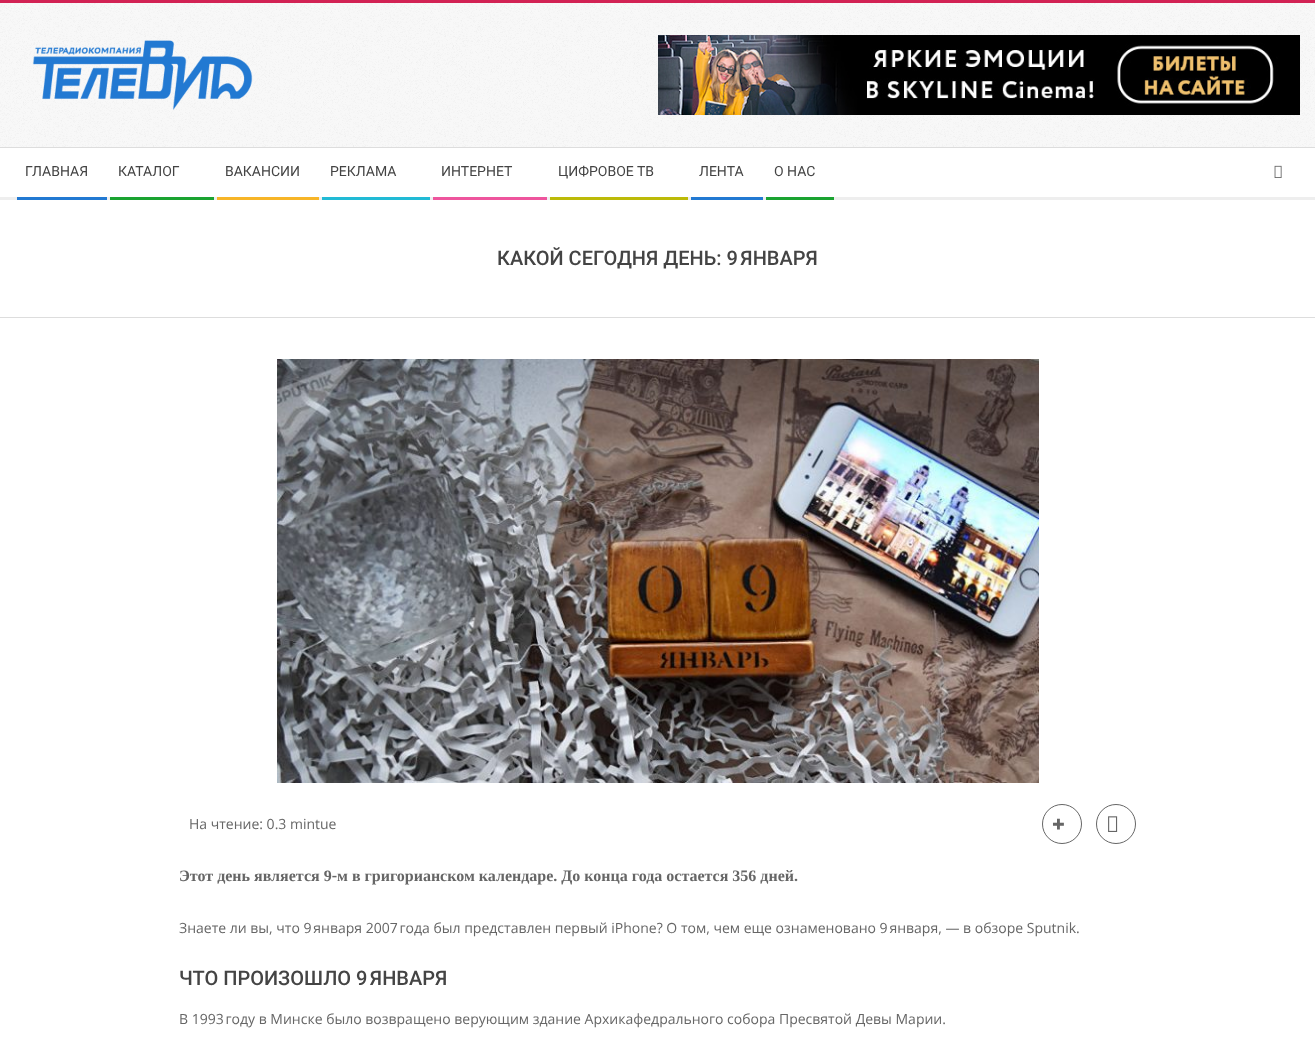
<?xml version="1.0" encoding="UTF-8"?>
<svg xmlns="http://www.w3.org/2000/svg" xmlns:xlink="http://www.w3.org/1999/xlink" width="1315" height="1040">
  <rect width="100%" height="100%" fill="#f7f7f7" />
  <image x="0" y="3" width="1315" height="144" xlink:href="image1.png" />
  <rect width="1315" height="3" fill="#d22254" />
  <rect y="147" width="1315" height="1" fill="#dddddd" />
  <image x="32" y="40" width="221" height="70" xlink:href="image2.png" />
  <image x="658" y="35" width="642" height="80" xlink:href="image3.png" />
  <rect y="148" width="1315" height="49" fill="#ffffff" />
  <rect y="197" width="1315" height="3" fill="#eeeeee" />
  <rect x="17" y="197" width="90" height="3" fill="#2279d2" />
  <rect x="110" y="197" width="104" height="3" fill="#1aa331" />
  <rect x="217" y="197" width="102" height="3" fill="#f7b528" />
  <rect x="322" y="197" width="108" height="3" fill="#21bad5" />
  <rect x="433" y="197" width="114" height="3" fill="#ee559d" />
  <rect x="550" y="197" width="138" height="3" fill="#bcba08" />
  <rect x="691" y="197" width="72" height="3" fill="#2279d2" />
  <rect x="766" y="197" width="68" height="3" fill="#1aa331" />
  <image x="1274" y="165" width="8" height="13" xlink:href="image4.png" />
  <rect y="200" width="1315" height="840" fill="#ffffff" />
  <rect y="317" width="1315" height="1" fill="#dddddd" />
  <image x="277" y="359" width="762" height="424" xlink:href="image5.png" />
  <circle cx="1062" cy="824" r="19.5" fill="none" stroke="#666666" />
  <circle cx="1116" cy="824" r="19.5" fill="none" stroke="#666666" />
  <image x="1108" y="816" width="10" height="16" xlink:href="image6.png" />
  <text x="25" y="176" style="font-family: Roboto; font-size: 14px; fill: #444444">ГЛАВНАЯ</text>
  <text x="118" y="176" style="font-family: Roboto; font-size: 14px; fill: #444444">КАТАЛОГ</text>
  <text x="225" y="176" style="font-family: Roboto; font-size: 14px; fill: #444444">ВАКАНСИИ</text>
  <text x="330" y="176" style="font-family: Roboto; font-size: 14px; fill: #444444">РЕКЛАМА</text>
  <text x="441" y="176" style="font-family: Roboto; font-size: 14px; fill: #444444">ИНТЕРНЕТ</text>
  <text x="558" y="176" style="font-family: Roboto; font-size: 14px; fill: #444444">ЦИФРОВОЕ ТВ</text>
  <text x="699" y="176" style="font-family: Roboto; font-size: 14px; fill: #444444">ЛЕНТА</text>
  <text x="774" y="176" style="font-family: Roboto; font-size: 14px; fill: #444444">О НАС</text>
  <text x="497" y="265" style="font-family: Roboto; font-size: 20px; font-weight: 500; fill: #444444">КАКОЙ СЕГОДНЯ ДЕНЬ: 9 ЯНВАРЯ</text>
  <text x="189" y="829" style="font-family: Open Sans; font-size: 14px; fill: #666666">На чтение: 0.3 mintue</text>
  <text x="1052" y="832" style="font-family: Noto Sans; font-size: 22px; font-weight: 900; fill: #666666">+</text>
  <text x="179" y="881" style="font-family: Liberation Serif; font-size: 16px; font-weight: bold; fill: #666666">Этот день является 9‑м в григорианском календаре. До конца года остается 356 дней.</text>
  <text x="179" y="933" style="font-family: Open Sans; font-size: 14px; fill: #666666">Знаете ли вы, что 9 января 2007 года был представлен первый iPhone? О том, чем еще ознаменовано 9 января, — в обзоре Sputnik.</text>
  <text x="179" y="985" style="font-family: Roboto; font-size: 20px; font-weight: 500; fill: #444444">ЧТО ПРОИЗОШЛО 9 ЯНВАРЯ</text>
  <text x="179" y="1024" style="font-family: Open Sans; font-size: 14px; fill: #666666">В 1993 году в Минске было возвращено верующим здание Архикафедрального собора Пресвятой Девы Марии.</text>
</svg>
